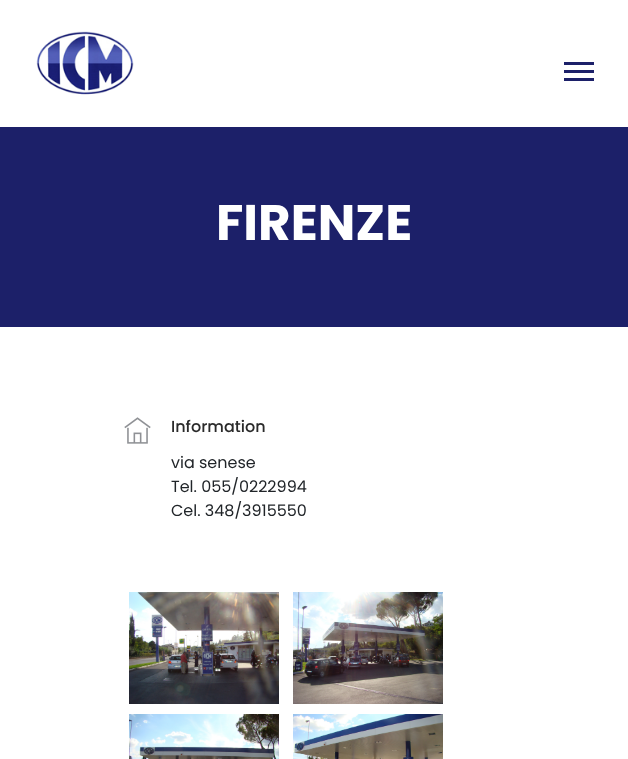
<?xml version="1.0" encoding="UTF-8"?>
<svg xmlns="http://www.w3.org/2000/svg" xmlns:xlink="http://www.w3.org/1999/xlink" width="628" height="759">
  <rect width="100%" height="100%" fill="#ffffff" />
  <image x="36" y="31" width="98" height="64" xlink:href="image1.png" />
  <rect x="564" y="62" width="30" height="3" fill="#1c2069" />
  <rect x="564" y="70" width="30" height="3" fill="#1c2069" />
  <rect x="564" y="78" width="30" height="3" fill="#1c2069" />
  <rect y="127" width="628" height="200" fill="#1c2069" />
  <image x="124" y="417" width="27" height="27" xlink:href="image2.png" />
  <image x="129" y="592" width="150" height="112" xlink:href="image3.png" />
  <image x="293" y="592" width="150" height="112" xlink:href="image4.png" />
  <image x="129" y="714" width="150" height="45" xlink:href="image5.png" />
  <image x="293" y="714" width="150" height="45" xlink:href="image6.png" />
  <text x="216" y="240" style="font-family: Poppins; font-size: 50px; font-weight: bold; fill: #ffffff">FIRENZE</text>
  <text x="171" y="432" style="font-family: Poppins; font-size: 16px; font-weight: 500; fill: #2a2a2a">Information</text>
  <text x="171" y="468" style="font-family: Poppins; font-size: 16px; fill: #212529">via senese</text>
  <text x="171" y="492" style="font-family: Poppins; font-size: 16px; fill: #212529">Tel. 055/0222994</text>
  <text x="171" y="516" style="font-family: Poppins; font-size: 16px; fill: #212529">Cel. 348/3915550</text>
</svg>
